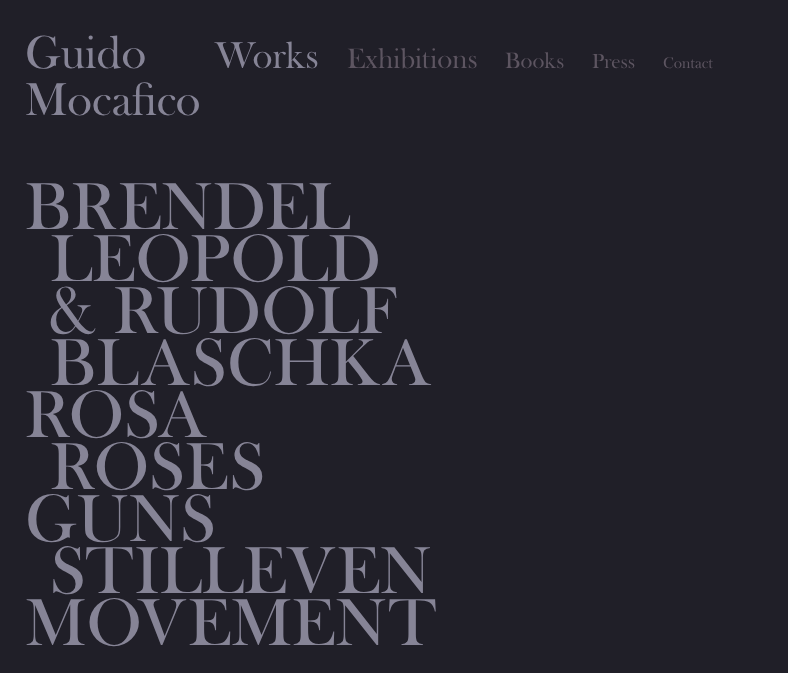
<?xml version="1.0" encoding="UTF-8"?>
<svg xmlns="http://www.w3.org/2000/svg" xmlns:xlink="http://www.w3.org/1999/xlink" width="788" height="673">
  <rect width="100%" height="100%" fill="#201f28" />
  <text x="25" y="68" style="font-family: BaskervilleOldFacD; font-size: 47.5px; fill: #868496">Guido</text>
  <text x="25" y="115" style="font-family: BaskervilleOldFacD; font-size: 47.5px; fill: #868496">Mocafico</text>
  <text x="215" y="68" style="font-family: BaskervilleOldFacD; font-size: 38.5px; fill: #868496">Works</text>
  <text x="347" y="68" style="font-family: BaskervilleOldFacD; font-size: 29px; fill: #5d5561">Exhibitions</text>
  <text x="505" y="68" style="font-family: BaskervilleOldFacD; font-size: 23px; fill: #5d5561">Books</text>
  <text x="592" y="68" style="font-family: BaskervilleOldFacD; font-size: 21px; fill: #5d5561">Press</text>
  <text x="663" y="68" style="font-family: BaskervilleOldFacD; font-size: 16px; fill: #5d5561">Contact</text>
  <text x="25" y="229" style="font-family: BaskervilleOldFacD; font-size: 68.75px; fill: #868496">BRENDEL</text>
  <text x="50" y="281" style="font-family: BaskervilleOldFacD; font-size: 68.75px; fill: #868496">LEOPOLD</text>
  <text x="50" y="333" style="font-family: BaskervilleOldFacD; font-size: 68.75px; fill: #868496">&amp; RUDOLF</text>
  <text x="50" y="385" style="font-family: BaskervilleOldFacD; font-size: 68.75px; fill: #868496">BLASCHKA</text>
  <text x="25" y="437" style="font-family: BaskervilleOldFacD; font-size: 68.75px; fill: #868496">ROSA</text>
  <text x="50" y="489" style="font-family: BaskervilleOldFacD; font-size: 68.75px; fill: #868496">ROSES</text>
  <text x="25" y="541" style="font-family: BaskervilleOldFacD; font-size: 68.75px; fill: #868496">GUNS</text>
  <text x="50" y="593" style="font-family: BaskervilleOldFacD; font-size: 68.75px; fill: #868496">STILLEVEN</text>
  <text x="25" y="645" style="font-family: BaskervilleOldFacD; font-size: 68.75px; fill: #868496">MOVEMENT</text>
</svg>
